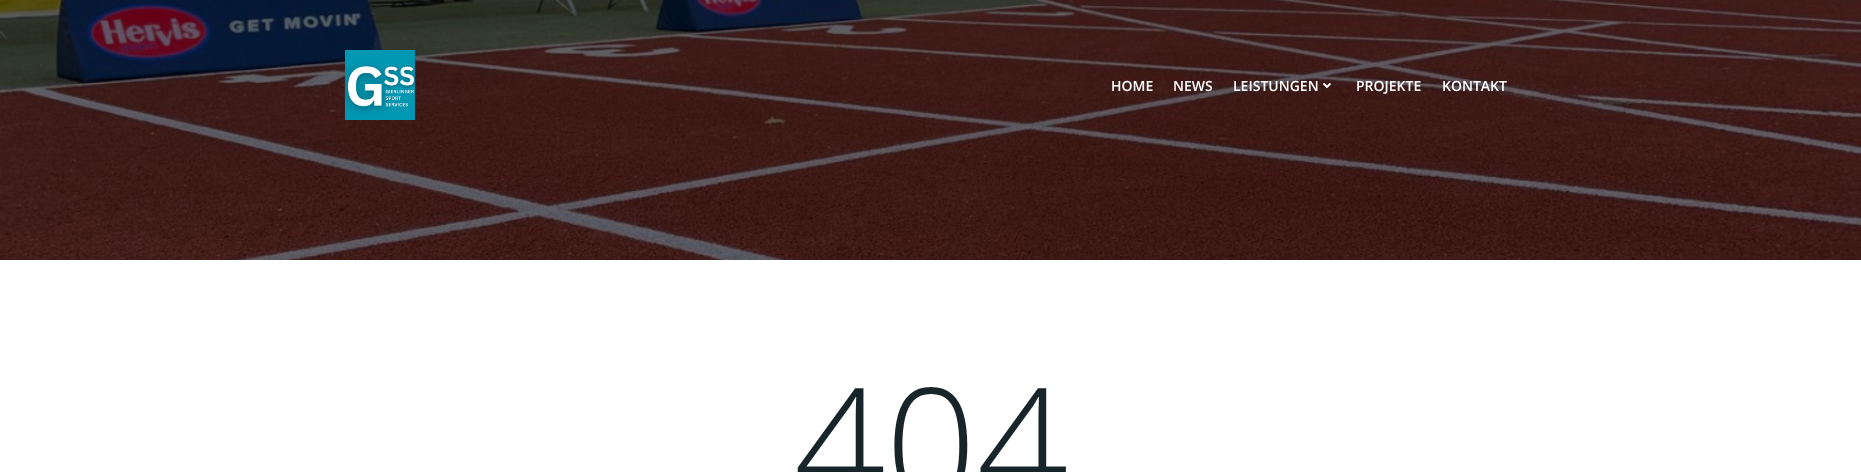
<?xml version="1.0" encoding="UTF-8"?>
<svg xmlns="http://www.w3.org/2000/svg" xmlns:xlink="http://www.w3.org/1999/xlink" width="1861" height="472">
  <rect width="100%" height="100%" fill="#ffffff" />
  <image x="0" y="0" width="1861" height="260" xlink:href="image1.png" />
  <image x="344" y="50" width="71" height="70" xlink:href="image2.png" />
  <image x="1323" y="83" width="8" height="5" xlink:href="image3.png" />
  <text x="1111" y="91" style="font-family: Open Sans; font-size: 14px; font-weight: 600; fill: #ffffff">HOME</text>
  <text x="1173" y="91" style="font-family: Open Sans; font-size: 14px; font-weight: 600; fill: #ffffff">NEWS</text>
  <text x="1233" y="91" style="font-family: Open Sans; font-size: 14px; font-weight: 600; fill: #ffffff">LEISTUNGEN</text>
  <text x="1356" y="91" style="font-family: Open Sans; font-size: 14px; font-weight: 600; fill: #ffffff">PROJEKTE</text>
  <text x="1442" y="91" style="font-family: Open Sans; font-size: 14px; font-weight: 600; fill: #ffffff">KONTAKT</text>
  <text x="794" y="503" style="font-family: Open Sans; font-size: 160px; font-weight: 300; fill: #17252a">404</text>
</svg>
